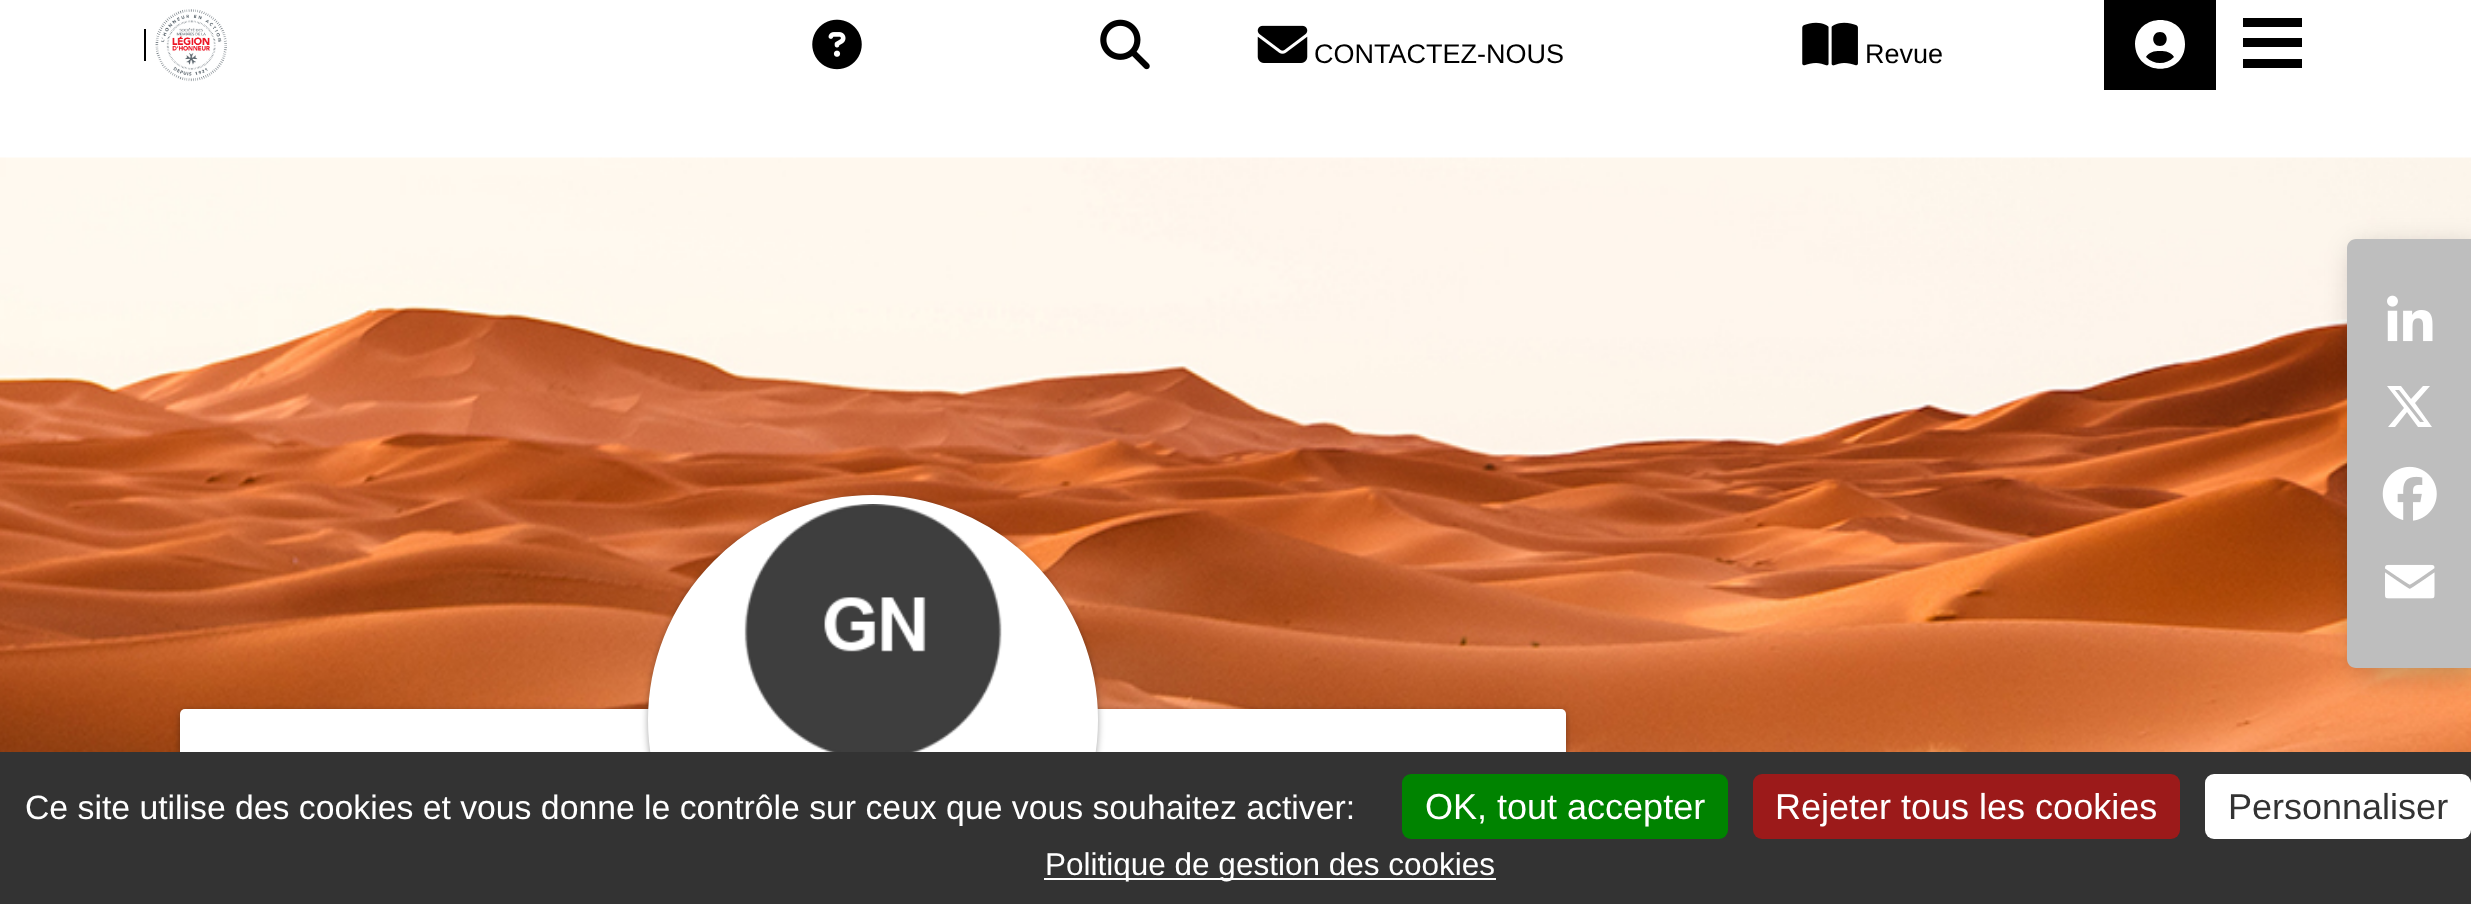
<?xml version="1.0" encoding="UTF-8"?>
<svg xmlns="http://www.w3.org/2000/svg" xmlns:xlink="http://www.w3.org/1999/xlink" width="2471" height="904">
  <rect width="100%" height="100%" fill="#ffffff" />
  <rect x="144" y="29" width="2" height="32" fill="#000000" />
  <rect x="2104" width="112" height="90" fill="#000000" />
  <path d="M 2174 57 c -3 -5 -8 -6 -14 -6 c -6 0 -11 1 -14 6 c 8 8 20 8 28 0 z m -39 -13 c 1 -32 50 -32 50 0 c 0 33 -49 33 -50 0 z m 25 2 c 9 0 9 -14 0 -14 c -9 0 -9 14 0 14 z" fill="#ffffff" />
  <image x="155" y="9" width="72" height="73" xlink:href="image1.png" />
  <image x="812" y="19" width="50" height="51" xlink:href="image2.png" />
  <image x="1100" y="19" width="50" height="51" xlink:href="image3.png" />
  <image x="1257" y="25" width="51" height="38" xlink:href="image4.png" />
  <image x="1802" y="22" width="56" height="44" xlink:href="image5.png" />
  <rect x="2243" y="18" width="59" height="9" fill="#000000" />
  <rect x="2243" y="38" width="59" height="9" fill="#000000" />
  <rect x="2243" y="59" width="59" height="9" fill="#000000" />
  <image x="0" y="157" width="2471" height="595" xlink:href="image6.png" />
  <rect x="180" y="711" width="1386" height="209" rx="5" fill="#000000" fill-opacity="0.35" filter="blur(3.5px)" />
  <rect x="180" y="709" width="1386" height="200" rx="5" fill="#ffffff" />
  <rect x="648" y="497" width="450" height="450" rx="225" fill="#000000" fill-opacity="0.35" filter="blur(3.5px)" />
  <circle cx="873" cy="720" r="220.5" fill="#ffffff" stroke="#ffffff" stroke-width="9" />
  <image x="744" y="504" width="258" height="248" xlink:href="image7.png" />
  <rect x="2354" y="248" width="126" height="429" rx="9" fill="#000000" fill-opacity="0.22" filter="blur(14.5px)" />
  <path d="M 2356 239 h 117 v 429 h -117 c -5 0 -9 -4 -9 -9 v -411 c 0 -5 4 -9 9 -9 z" fill="#bebebe" />
  <image x="2387" y="295" width="46" height="47" xlink:href="image8.png" />
  <path d="M 2423 386 h 7 l -15 17 l 17 24 h -14 l -11 -15 l -12 15 h -7 l 16 -19 l -17 -22 h 14 l 10 13 z m -3 36 h 4 l -25 -32 h -4 z" fill="#ffffff" />
  <image x="2382" y="466" width="55" height="55" xlink:href="image9.png" />
  <image x="2385" y="564" width="50" height="35" xlink:href="image10.png" />
  <rect y="752" width="2471" height="152" fill="#333333" />
  <rect x="1402" y="774" width="326" height="65" rx="9" fill="#008300" />
  <rect x="1753" y="774" width="427" height="65" rx="9" fill="#9c1a1a" />
  <rect x="2205" y="774" width="266" height="65" rx="9" fill="#ffffff" />
  <rect x="1044" y="878" width="452" height="2" fill="#ffffff" />
  <text x="1314" y="63" style="font-family: Liberation Sans; font-size: 27px; fill: #000000">CONTACTEZ-NOUS</text>
  <text x="1865" y="63" style="font-family: Liberation Sans; font-size: 27px; fill: #000000">Revue</text>
  <text x="25" y="819" style="font-family: Liberation Sans; font-size: 33.75px; fill: #ffffff">Ce site utilise des cookies et vous donne le contrôle sur ceux que vous souhaitez activer:</text>
  <text x="1425" y="819" style="font-family: Liberation Sans; font-size: 36px; fill: #ffffff">OK, tout accepter</text>
  <text x="1775" y="819" style="font-family: Liberation Sans; font-size: 36px; fill: #ffffff">Rejeter tous les cookies</text>
  <text x="2228" y="819" style="font-family: Liberation Sans; font-size: 36px; fill: #333333">Personnaliser</text>
  <text x="1045" y="875" style="font-family: Liberation Sans; font-size: 31.5px; fill: #ffffff">Politique de gestion des cookies</text>
</svg>
